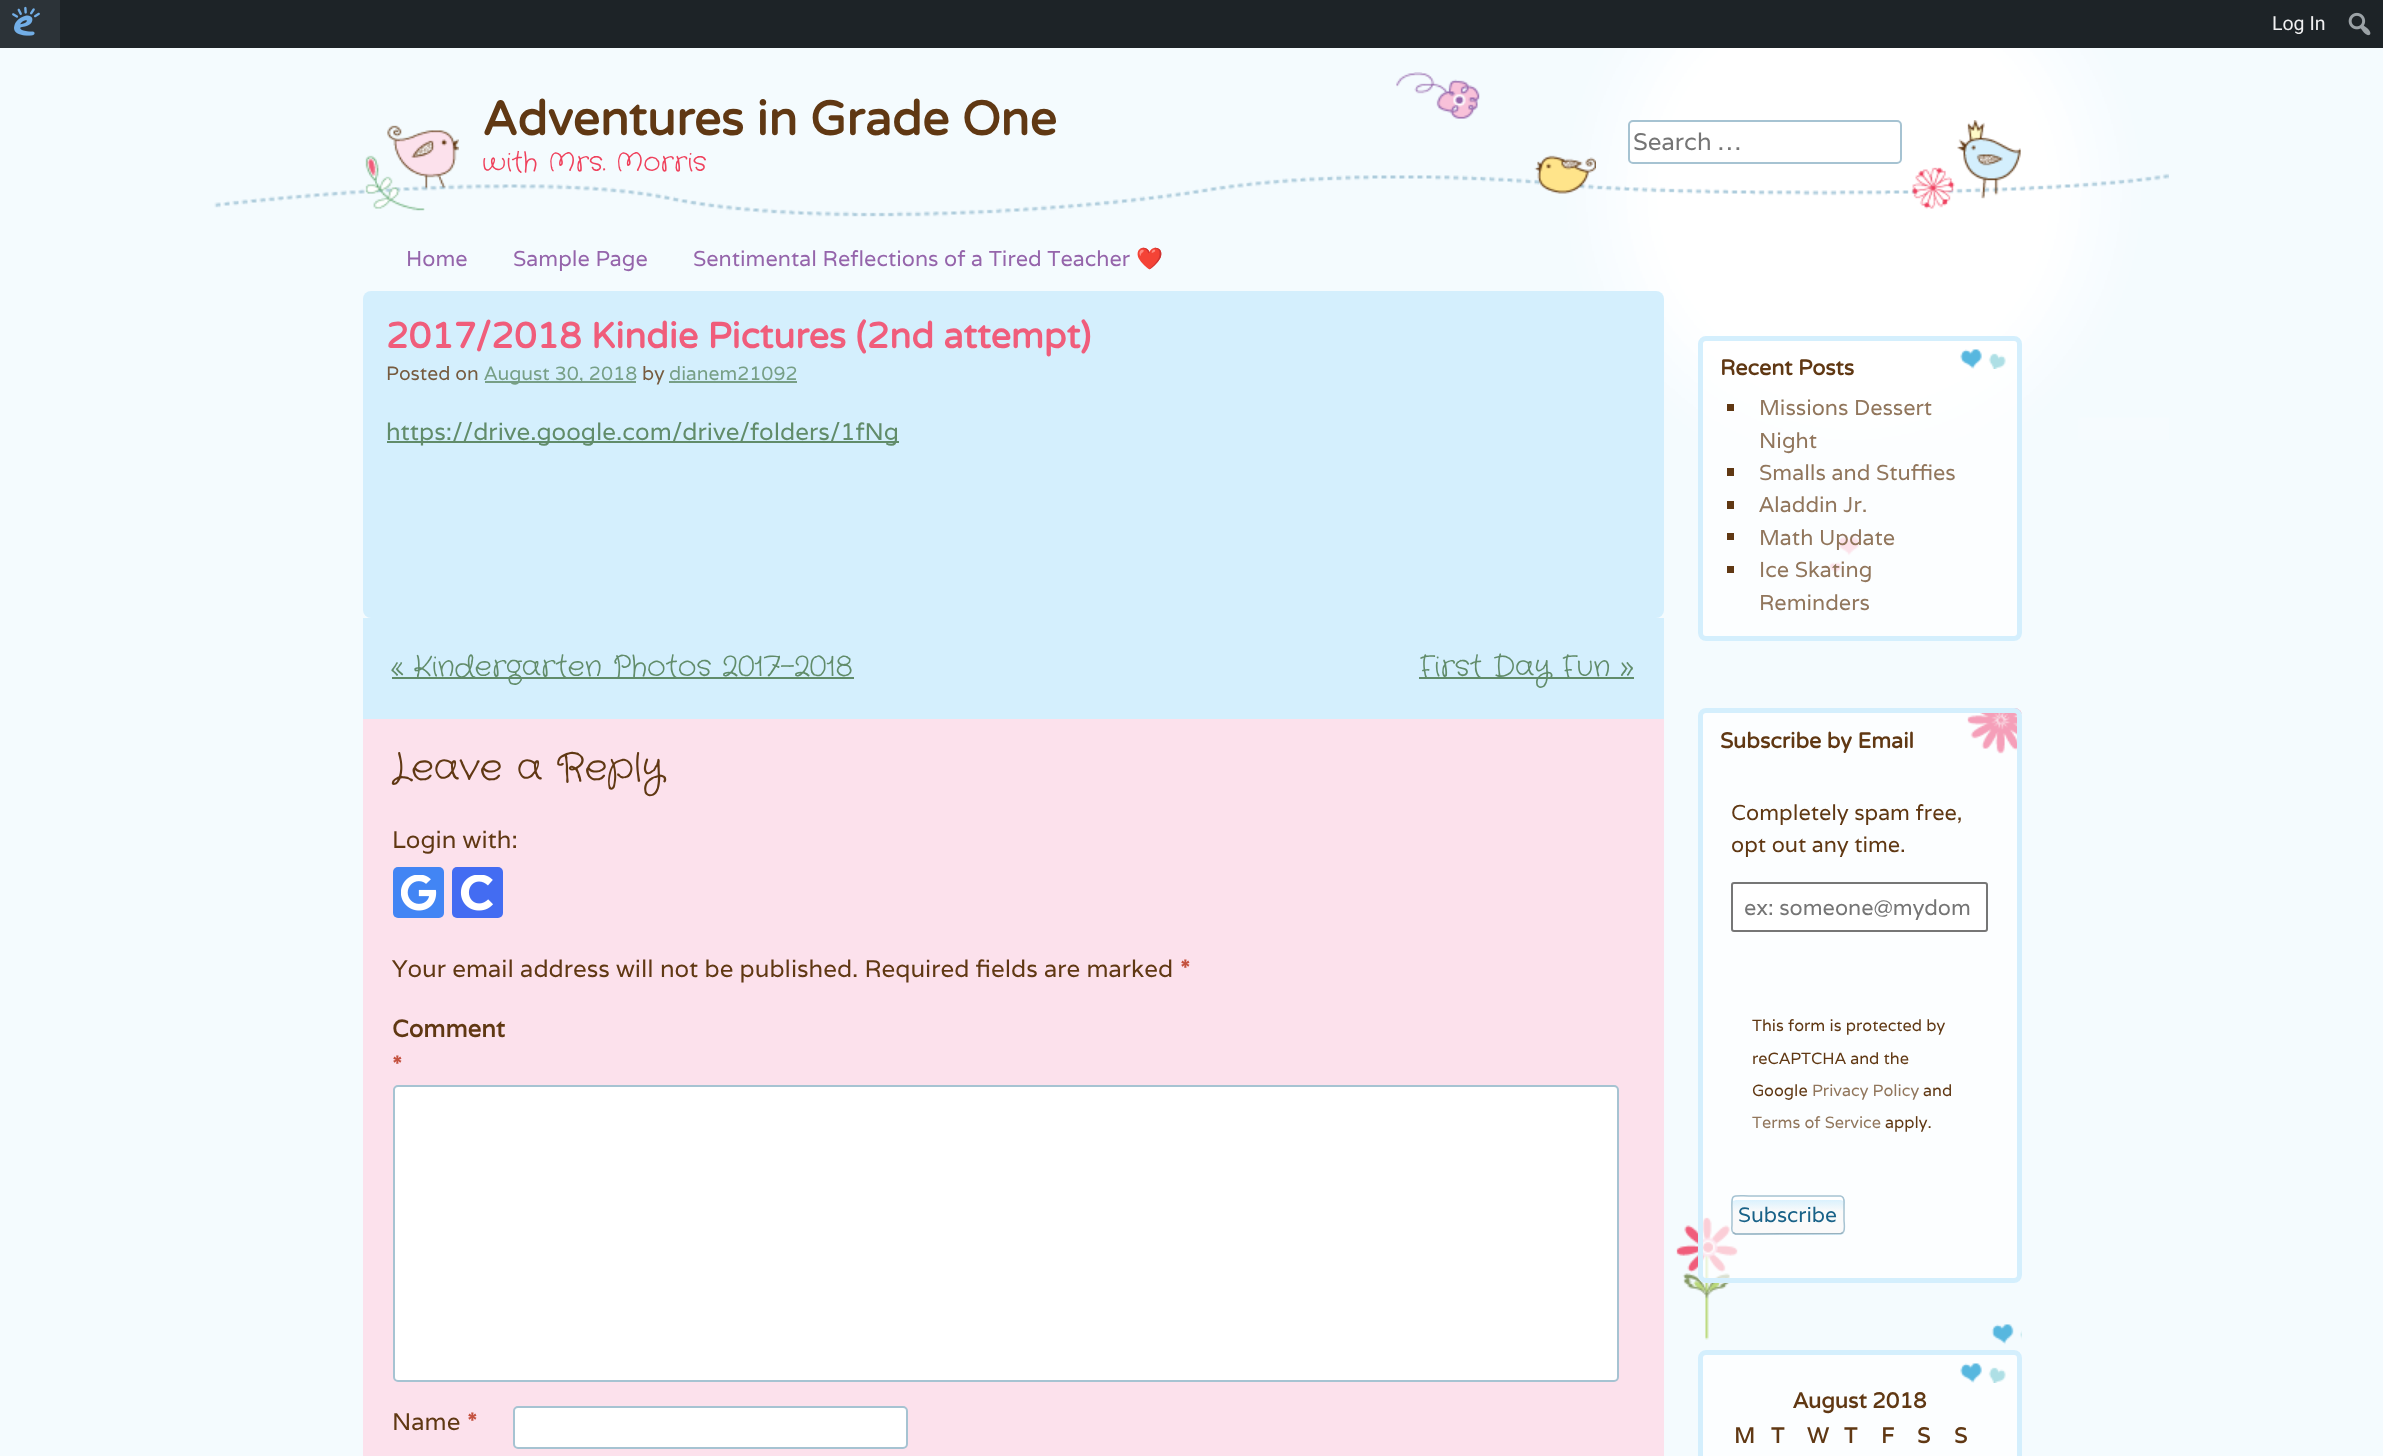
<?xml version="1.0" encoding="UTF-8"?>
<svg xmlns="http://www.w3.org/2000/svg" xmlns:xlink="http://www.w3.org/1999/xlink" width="2383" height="1456">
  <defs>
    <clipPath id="clip1"><rect x="1731" y="1196" width="114" height="39" rx="5" /></clipPath>
    <linearGradient id="g1" gradientUnits="userSpaceOnUse" x1="1788" y1="1197" x2="1788" y2="1161"><stop offset="0.6" stop-color="#fafafa" /><stop offset="1" stop-color="#d2effe" /></linearGradient>
    <linearGradient id="g2" gradientUnits="userSpaceOnUse" x1="1788" y1="1233" x2="1788" y2="1197"><stop offset="0.6" stop-color="#fafafa" /><stop offset="1" stop-color="#d2effe" /></linearGradient>
    <linearGradient id="g3" gradientUnits="userSpaceOnUse" x1="1788" y1="1269" x2="1788" y2="1233"><stop offset="0.6" stop-color="#fafafa" /><stop offset="1" stop-color="#d2effe" /></linearGradient>
  </defs>
  <rect width="100%" height="100%" fill="#f4fbfe" />
  <image x="214" y="48" width="1955" height="392" xlink:href="image1.png" />
  <rect x="60" width="2323" height="48" fill="#1d2327" />
  <rect width="60" height="48" fill="#2c3338" />
  <image x="12" y="6" width="28" height="30" xlink:href="image2.png" />
  <image x="2348" y="12" width="23" height="24" xlink:href="image3.png" />
  <image x="365" y="72" width="1656" height="139" xlink:href="image4.png" />
  <rect x="1629" y="121" width="272" height="42" rx="4" fill="#ffffff" stroke="#a6c3d2" stroke-width="2" />
  <image x="1676" y="536" width="346" height="809" xlink:href="image5.png" />
  <rect x="363" y="291" width="1301" height="327" rx="8" fill="#d4effd" />
  <rect x="485" y="381" width="151" height="2" fill="#779f86" />
  <rect x="669" y="381" width="128" height="2" fill="#779f86" />
  <rect x="387" y="441" width="512" height="2" fill="#618c6a" />
  <rect x="363" y="618" width="1301" height="101" fill="#d4effd" />
  <rect x="392" y="677" width="462" height="2" fill="#618c6a" />
  <rect x="1419" y="677" width="215" height="2" fill="#618c6a" />
  <rect x="363" y="719" width="1301" height="737" fill="#fce1ec" />
  <rect x="393" y="867" width="51" height="51" rx="5" fill="#4285f4" />
  <image x="401" y="875" width="36" height="36" xlink:href="image6.png" />
  <rect x="452" y="867" width="51" height="51" rx="5" fill="#436cf2" />
  <image x="460" y="875" width="33" height="36" xlink:href="image7.png" />
  <rect x="394" y="1086" width="1224" height="295" rx="4" fill="#ffffff" stroke="#a6c3d2" stroke-width="2" />
  <rect x="514" y="1407" width="393" height="41" rx="4" fill="#ffffff" stroke="#a6c3d2" stroke-width="2" />
  <rect x="1698" y="336" width="324" height="305" rx="8" fill="#ffffff" fill-opacity="0.7" />
  <image x="1960" y="349" width="46" height="20" xlink:href="image8.png" />
  <rect x="1700.5" y="338.5" width="319" height="300" rx="5.5" fill="none" stroke="#d4effd" stroke-width="5" />
  <rect x="1727" y="404" width="7" height="7" fill="#603813" />
  <rect x="1727" y="468" width="7" height="8" fill="#603813" />
  <rect x="1727" y="501" width="7" height="8" fill="#603813" />
  <rect x="1727" y="533" width="7" height="7" fill="#603813" />
  <rect x="1727" y="566" width="7" height="7" fill="#603813" />
  <rect x="1698" y="708" width="324" height="575" rx="8" fill="#ffffff" fill-opacity="0.7" />
  <image x="1967" y="708" width="55" height="46" xlink:href="image9.png" />
  <rect x="1700.5" y="710.5" width="319" height="570" rx="5.5" fill="none" stroke="#d4effd" stroke-width="5" />
  <rect x="1732" y="883" width="255" height="48" rx="2" fill="#ffffff" stroke="#767676" stroke-width="2" />
  <g clip-path="url(#clip1)">
    <rect x="1731" y="1196" width="114" height="1" fill="url(#g1)" />
    <rect x="1731" y="1197" width="114" height="36" fill="url(#g2)" />
    <rect x="1731" y="1233" width="114" height="2" fill="url(#g3)" />
  </g>
  <path d="M 1736 1200 h 104 c 2 0 4 1 4 3 v -3 c 0 -2 -1 -3 -3 -3 h -105 c -2 0 -3 1 -3 3 v 1 z" fill="#ffffff" />
  <path d="M 1843 1232.5 l -2 1 l -88 0.5 h -17.5 l -2.5 -1.5" fill="none" stroke="#98b1be" stroke-width="1.5" />
  <path d="M 1733 1232.5 c -2 -1.5 -1 -5.5 -1 -7.5 v -10 c 0 -23 -3.5 -19 21 -19 h 87.5 c 4.5 0.5 3.5 6 3.5 9 v 15 c 0 2.5 1.5 10 -1 12.5" fill="none" stroke="#a6c3d2" stroke-width="1.5" />
  <rect x="1698" y="1350" width="324" height="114" rx="8" fill="#fcfeff" />
  <image x="1960" y="1363" width="46" height="20" xlink:href="image10.png" />
  <rect x="1700.5" y="1352.5" width="319" height="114" rx="5.5" fill="none" stroke="#d4effd" stroke-width="5" />
  <text x="2272" y="30" style="font-family: Roboto; font-size: 19.5px; fill: #f0f0f1">Log In</text>
  <text x="482" y="135" style="font-family: Varela Round; font-size: 48px; font-weight: bold; fill: #603813">Adventures in Grade One</text>
  <text x="482" y="170" style="font-family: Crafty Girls; font-size: 26.5px; fill: #ef415c">with Mrs. Morris</text>
  <text x="1633" y="150" style="font-family: Varela; font-size: 24px; fill: #757575">Search …</text>
  <text x="406" y="266" style="font-family: Varela; font-size: 21.6px; fill: #9565ab">Home</text>
  <text x="513" y="266" style="font-family: Varela; font-size: 21.6px; fill: #9565ab">Sample Page</text>
  <text x="693" y="266" style="font-family: Varela; font-size: 21.6px; fill: #9565ab">Sentimental Reflections of a Tired Teacher</text>
  <text x="1136" y="266" style="font-family: Noto Color Emoji; font-size: 21.6px; fill: #9565ab">❤️</text>
  <text x="386" y="348" style="font-family: Varela Round; font-size: 36px; font-weight: bold; fill: #f05d7b">2017/2018 Kindie Pictures (2nd attempt)</text>
  <text x="386" y="380" style="font-family: Varela; font-size: 19.25px; fill: #765b3f">Posted on</text>
  <text x="484" y="380" style="font-family: Varela; font-size: 19.25px; fill: #779f86">August 30, 2018</text>
  <text x="642" y="380" style="font-family: Varela; font-size: 19.25px; fill: #765b3f">by</text>
  <text x="669" y="380" style="font-family: Varela; font-size: 19.25px; fill: #779f86">dianem21092</text>
  <text x="386" y="440" style="font-family: Varela; font-size: 24px; fill: #618c6a">https://drive.google.com/drive/folders/1fNg</text>
  <text x="391" y="675" style="font-family: Crafty Girls; font-size: 28.75px; fill: #618c6a">« Kindergarten Photos 2017-2018</text>
  <text x="1419" y="675" style="font-family: Crafty Girls; font-size: 28.75px; fill: #618c6a">First Day Fun »</text>
  <text x="392" y="779" style="font-family: Crafty Girls; font-size: 38.5px; fill: #603813">Leave a Reply</text>
  <text x="392" y="848" style="font-family: Varela; font-size: 24px; fill: #603813">Login with:</text>
  <text x="392" y="977" style="font-family: Varela; font-size: 24px; fill: #603813">Your email address will not be published. Required fields are marked</text>
  <text x="1180" y="977" style="font-family: Varela; font-size: 24px; font-weight: bold; fill: #c4513f">*</text>
  <text x="392" y="1037" style="font-family: Varela; font-size: 24px; font-weight: bold; fill: #603813">Comment</text>
  <text x="392" y="1073" style="font-family: Varela; font-size: 24px; font-weight: bold; fill: #c4513f">*</text>
  <text x="392" y="1430" style="font-family: Varela; font-size: 24px; fill: #603813">Name</text>
  <text x="467" y="1430" style="font-family: Varela; font-size: 24px; font-weight: bold; fill: #c4513f">*</text>
  <text x="1720" y="375" style="font-family: Varela Round; font-size: 21.6px; font-weight: bold; fill: #603813">Recent Posts</text>
  <text x="1759" y="415" style="font-family: Varela; font-size: 21.6px; fill: #91765c">Missions Dessert</text>
  <text x="1759" y="448" style="font-family: Varela; font-size: 21.6px; fill: #91765c">Night</text>
  <text x="1759" y="480" style="font-family: Varela; font-size: 21.6px; fill: #91765c">Smalls and Stuffies</text>
  <text x="1759" y="512" style="font-family: Varela; font-size: 21.6px; fill: #91765c">Aladdin Jr.</text>
  <text x="1759" y="545" style="font-family: Varela; font-size: 21.6px; fill: #91765c">Math Update</text>
  <text x="1759" y="577" style="font-family: Varela; font-size: 21.6px; fill: #91765c">Ice Skating</text>
  <text x="1759" y="610" style="font-family: Varela; font-size: 21.6px; fill: #91765c">Reminders</text>
  <text x="1720" y="748" style="font-family: Varela Round; font-size: 21.6px; font-weight: bold; fill: #603813">Subscribe by Email</text>
  <text x="1731" y="820" style="font-family: Varela; font-size: 21.6px; fill: #603813">Completely spam free,</text>
  <text x="1731" y="852" style="font-family: Varela; font-size: 21.6px; fill: #603813">opt out any time.</text>
  <text x="1744" y="915" style="font-family: Varela; font-size: 21.6px; fill: #757575">ex: someone@mydom</text>
  <text x="1752" y="1031" style="font-family: Varela; font-size: 16.25px; fill: #603813">This form is protected by</text>
  <text x="1752" y="1064" style="font-family: Varela; font-size: 16.25px; fill: #603813">reCAPTCHA and the</text>
  <text x="1752" y="1096" style="font-family: Varela; font-size: 16.25px; fill: #603813">Google</text>
  <text x="1812" y="1096" style="font-family: Varela; font-size: 16.25px; fill: #91765c">Privacy Policy</text>
  <text x="1923" y="1096" style="font-family: Varela; font-size: 16.25px; fill: #603813">and</text>
  <text x="1752" y="1128" style="font-family: Varela; font-size: 16.25px; fill: #91765c">Terms of Service</text>
  <text x="1885" y="1128" style="font-family: Varela; font-size: 16.25px; fill: #603813">apply.</text>
  <text x="1738" y="1222" style="font-family: Varela; font-size: 21px; fill: #196288">Subscribe</text>
  <text x="1793" y="1408" style="font-family: Varela; font-size: 21.6px; font-weight: bold; fill: #603813">August 2018</text>
  <text x="1734" y="1443" style="font-family: Varela; font-size: 21.6px; font-weight: bold; fill: #603813">M</text>
  <text x="1771" y="1443" style="font-family: Varela; font-size: 21.6px; font-weight: bold; fill: #603813">T</text>
  <text x="1807" y="1443" style="font-family: Varela; font-size: 21.6px; font-weight: bold; fill: #603813">W</text>
  <text x="1844" y="1443" style="font-family: Varela; font-size: 21.6px; font-weight: bold; fill: #603813">T</text>
  <text x="1881" y="1443" style="font-family: Varela; font-size: 21.6px; font-weight: bold; fill: #603813">F</text>
  <text x="1917" y="1443" style="font-family: Varela; font-size: 21.6px; font-weight: bold; fill: #603813">S</text>
  <text x="1954" y="1443" style="font-family: Varela; font-size: 21.6px; font-weight: bold; fill: #603813">S</text>
</svg>
